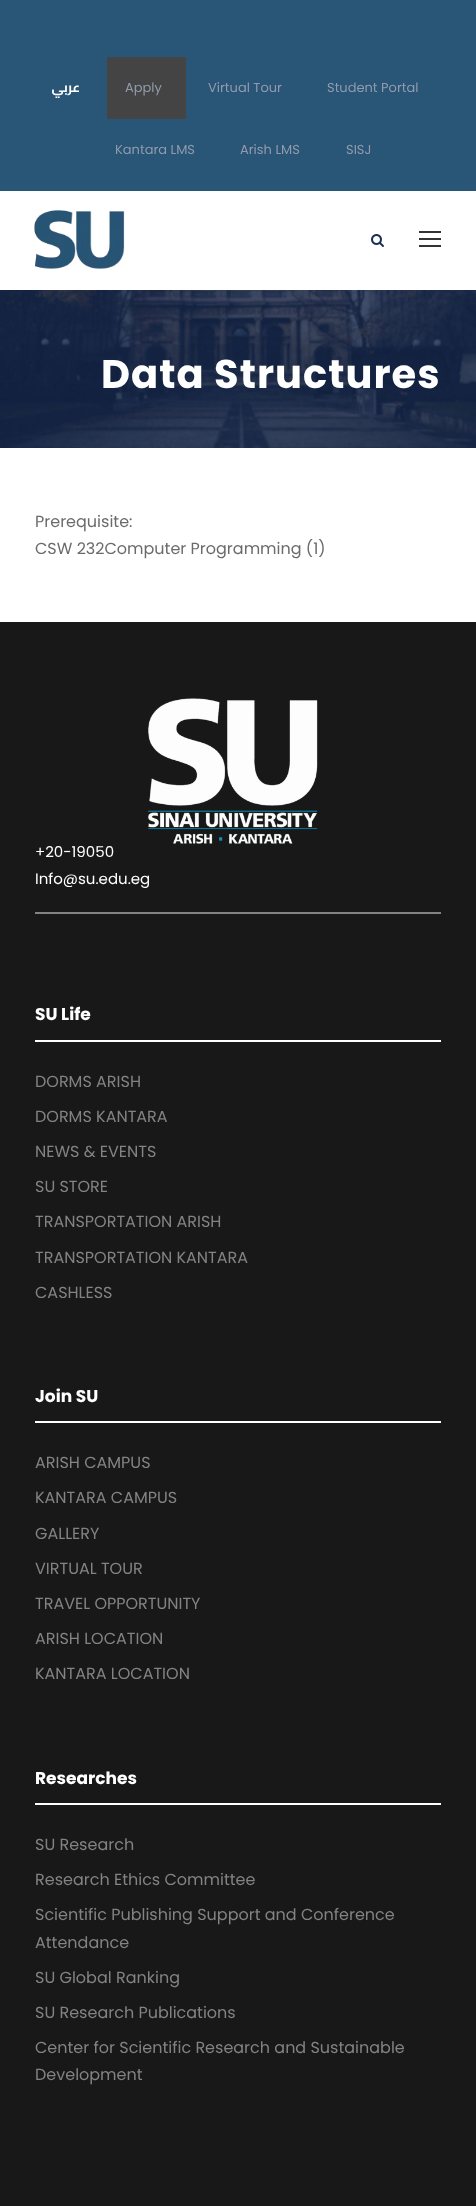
<?xml version="1.0" encoding="UTF-8"?>
<svg xmlns="http://www.w3.org/2000/svg" xmlns:xlink="http://www.w3.org/1999/xlink" width="476" height="2206">
  <rect width="100%" height="100%" fill="#ffffff" />
  <rect width="476" height="191" fill="#295576" />
  <rect x="107" y="57" width="79" height="62" fill="#444444" />
  <image x="34" y="210" width="91" height="59" xlink:href="image1.png" />
  <image x="371" y="234" width="13" height="13" xlink:href="image2.png" />
  <rect x="419" y="231" width="22" height="2" fill="#333333" />
  <rect x="419" y="238" width="22" height="2" fill="#333333" />
  <rect x="419" y="245" width="22" height="2" fill="#333333" />
  <image x="0" y="290" width="476" height="158" xlink:href="image3.png" />
  <rect y="622" width="476" height="1584" fill="#181818" />
  <image x="148" y="698" width="170" height="146" xlink:href="image4.png" />
  <rect x="35" y="912" width="406" height="2" fill="#838383" />
  <rect x="35" y="1040" width="406" height="2" fill="#ffffff" />
  <rect x="35" y="1421" width="406" height="2" fill="#ffffff" />
  <rect x="35" y="1803" width="406" height="2" fill="#ffffff" />
  <text x="80" y="92" style="font-family: Cairo; font-size: 13px; font-weight: bold; direction: rtl; fill: #ffffff">عربي</text>
  <text x="125" y="92" style="font-family: Poppins; font-size: 13px; fill: #919bad">Apply</text>
  <text x="208" y="92" style="font-family: Poppins; font-size: 13px; fill: #919bad">Virtual Tour</text>
  <text x="327" y="92" style="font-family: Poppins; font-size: 13px; fill: #919bad">Student Portal</text>
  <text x="115" y="154" style="font-family: Poppins; font-size: 13px; fill: #919bad">Kantara LMS</text>
  <text x="240" y="154" style="font-family: Poppins; font-size: 13px; fill: #919bad">Arish LMS</text>
  <text x="346" y="154" style="font-family: Poppins; font-size: 13px; fill: #919bad">SISJ</text>
  <text x="101" y="388" style="font-family: Poppins; font-size: 40px; font-weight: bold; letter-spacing: 1px; fill: #ffffff">Data Structures</text>
  <text x="35" y="527" style="font-family: Poppins; font-size: 16px; fill: #6b6b6b">Prerequisite:</text>
  <text x="35" y="554" style="font-family: Poppins; font-size: 16px; fill: #6b6b6b">CSW 232Computer Programming (1)</text>
  <text x="35" y="857" style="font-family: Poppins; font-size: 15px; fill: #ffffff">+20-19050</text>
  <text x="35" y="884" style="font-family: Poppins; font-size: 15px; fill: #ffffff">Info@su.edu.eg</text>
  <text x="35" y="1020" style="font-family: Poppins; font-size: 17px; font-weight: bold; fill: #ffffff">SU Life</text>
  <text x="35" y="1087" style="font-family: Poppins; font-size: 16px; fill: #838383">DORMS ARISH</text>
  <text x="35" y="1122" style="font-family: Poppins; font-size: 16px; fill: #838383">DORMS KANTARA</text>
  <text x="35" y="1157" style="font-family: Poppins; font-size: 16px; fill: #838383">NEWS &amp; EVENTS</text>
  <text x="35" y="1192" style="font-family: Poppins; font-size: 16px; fill: #838383">SU STORE</text>
  <text x="35" y="1227" style="font-family: Poppins; font-size: 16px; fill: #838383">TRANSPORTATION ARISH</text>
  <text x="35" y="1263" style="font-family: Poppins; font-size: 16px; fill: #838383">TRANSPORTATION KANTARA</text>
  <text x="35" y="1298" style="font-family: Poppins; font-size: 16px; fill: #838383">CASHLESS</text>
  <text x="35" y="1402" style="font-family: Poppins; font-size: 17px; font-weight: bold; fill: #ffffff">Join SU</text>
  <text x="35" y="1468" style="font-family: Poppins; font-size: 16px; fill: #838383">ARISH CAMPUS</text>
  <text x="35" y="1503" style="font-family: Poppins; font-size: 16px; fill: #838383">KANTARA CAMPUS</text>
  <text x="35" y="1539" style="font-family: Poppins; font-size: 16px; fill: #838383">GALLERY</text>
  <text x="35" y="1574" style="font-family: Poppins; font-size: 16px; fill: #838383">VIRTUAL TOUR</text>
  <text x="35" y="1609" style="font-family: Poppins; font-size: 16px; fill: #838383">TRAVEL OPPORTUNITY</text>
  <text x="35" y="1644" style="font-family: Poppins; font-size: 16px; fill: #838383">ARISH LOCATION</text>
  <text x="35" y="1679" style="font-family: Poppins; font-size: 16px; fill: #838383">KANTARA LOCATION</text>
  <text x="35" y="1784" style="font-family: Poppins; font-size: 17px; font-weight: bold; fill: #ffffff">Researches</text>
  <text x="35" y="1850" style="font-family: Poppins; font-size: 16px; fill: #838383">SU Research</text>
  <text x="35" y="1885" style="font-family: Poppins; font-size: 16px; fill: #838383">Research Ethics Committee</text>
  <text x="35" y="1920" style="font-family: Poppins; font-size: 16px; fill: #838383">Scientific Publishing Support and Conference</text>
  <text x="35" y="1948" style="font-family: Poppins; font-size: 16px; fill: #838383">Attendance</text>
  <text x="35" y="1983" style="font-family: Poppins; font-size: 16px; fill: #838383">SU Global Ranking</text>
  <text x="35" y="2018" style="font-family: Poppins; font-size: 16px; fill: #838383">SU Research Publications</text>
  <text x="35" y="2053" style="font-family: Poppins; font-size: 16px; fill: #838383">Center for Scientific Research and Sustainable</text>
  <text x="35" y="2080" style="font-family: Poppins; font-size: 16px; fill: #838383">Development</text>
</svg>
